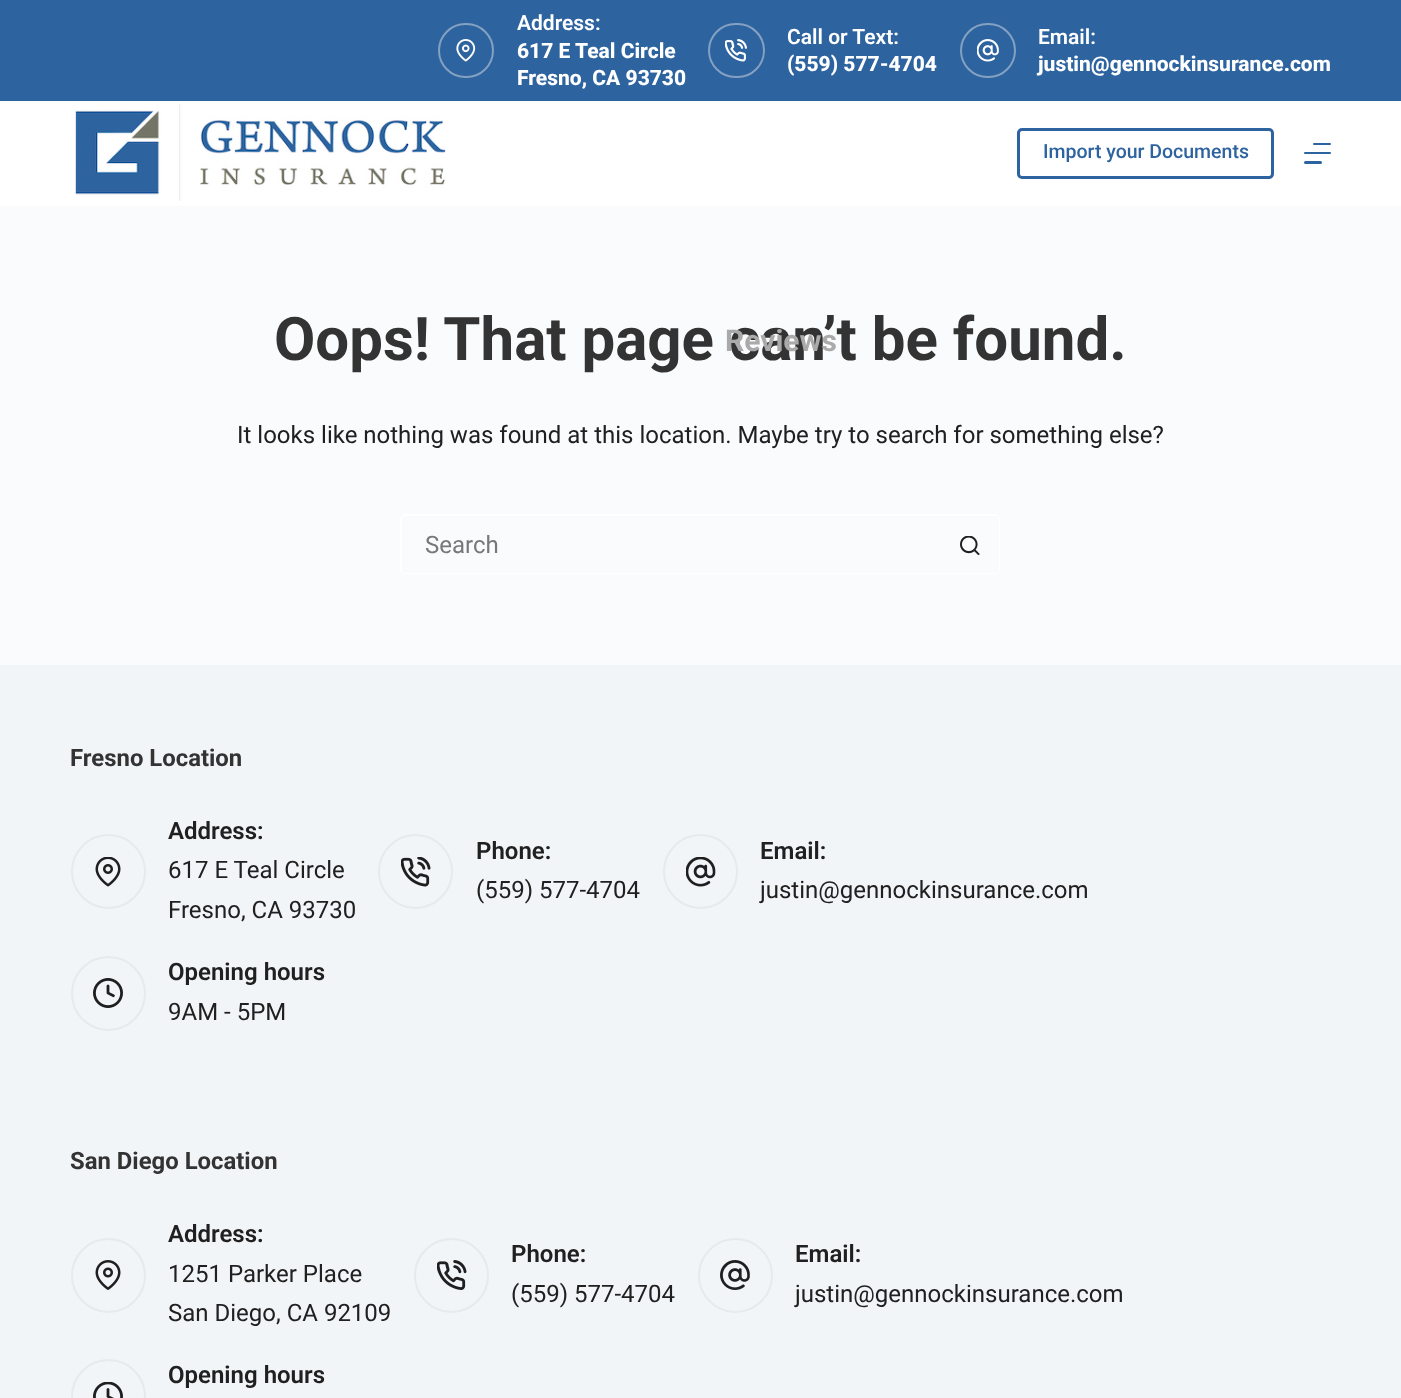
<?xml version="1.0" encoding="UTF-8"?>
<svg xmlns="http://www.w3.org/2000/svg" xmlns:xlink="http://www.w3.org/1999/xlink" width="1401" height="1398">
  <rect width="100%" height="100%" fill="#fafbfc" />
  <rect width="1401" height="101" fill="#2d639f" />
  <rect x="439" y="24" width="54" height="53" rx="26.5" fill="none" stroke="#84a1c2" stroke-width="2" />
  <image x="456" y="39" width="20" height="23" xlink:href="image1.png" />
  <rect x="709" y="24" width="55" height="53" rx="26.5" fill="none" stroke="#84a1c2" stroke-width="2" />
  <image x="725" y="39" width="22" height="23" xlink:href="image2.png" />
  <rect x="961" y="24" width="54" height="53" rx="26.5" fill="none" stroke="#84a1c2" stroke-width="2" />
  <image x="977" y="39" width="22" height="23" xlink:href="image3.png" />
  <rect y="101" width="1401" height="105" fill="#ffffff" />
  <image x="75" y="104" width="371" height="97" xlink:href="image4.png" />
  <rect x="1018.5" y="129.5" width="254" height="48" rx="3.5" fill="none" stroke="#2d639f" stroke-width="3" />
  <rect x="1313" y="143" width="18" height="2" rx="1" fill="#2d639f" />
  <rect x="1304" y="152" width="27" height="2" rx="1" fill="#2d639f" />
  <rect x="1304" y="161" width="18" height="3" rx="1.5" fill="#2d639f" />
  <path d="M 405 514 h 535 v 60 h -535 c -2 0 -5 -2 -5 -4 v -51 c 0 -2 3 -5 5 -5 z m 0 2 h 535 v 57 h -535 c -2 0 -3 -1 -3 -3 v -51 c 0 -2 1 -3 3 -3 z" fill="#ffffff" fill-rule="evenodd" />
  <path d="M 940 514 h 56 c 2 0 4 3 4 5 v 51 c 0 2 -2 4 -4 4 h -56 z m 0 2 h 56 c 2 0 3 1 3 3 v 51 c 0 2 -1 3 -3 3 h -56 z" fill="#ffffff" fill-rule="evenodd" />
  <image x="960" y="536" width="20" height="19" xlink:href="image5.png" />
  <path d="M 977.5 536 c 5 4 5.5 11 1.5 15.5" fill="none" stroke="#fafbfc" stroke-width="2.2" stroke-linecap="round" />
  <rect y="665" width="1401" height="733" fill="#f2f5f7" />
  <circle cx="108.5" cy="871.5" r="36.5" fill="none" stroke="#e6eaee" stroke-width="2" />
  <image x="95" y="857" width="26" height="30" xlink:href="image6.png" />
  <circle cx="415.5" cy="871.5" r="36.5" fill="none" stroke="#e6eaee" stroke-width="2" />
  <image x="401" y="857" width="30" height="30" xlink:href="image7.png" />
  <circle cx="700.5" cy="871.5" r="36.5" fill="none" stroke="#e6eaee" stroke-width="2" />
  <image x="686" y="857" width="30" height="30" xlink:href="image8.png" />
  <circle cx="108.5" cy="993.5" r="36.5" fill="none" stroke="#e6eaee" stroke-width="2" />
  <image x="93" y="978" width="30" height="30" xlink:href="image9.png" />
  <circle cx="108.5" cy="1275.5" r="36.5" fill="none" stroke="#e6eaee" stroke-width="2" />
  <image x="95" y="1260" width="26" height="30" xlink:href="image10.png" />
  <circle cx="451.5" cy="1275.5" r="36.5" fill="none" stroke="#e6eaee" stroke-width="2" />
  <image x="437" y="1260" width="30" height="30" xlink:href="image11.png" />
  <circle cx="735.5" cy="1275.5" r="36.5" fill="none" stroke="#e6eaee" stroke-width="2" />
  <image x="720" y="1260" width="30" height="30" xlink:href="image12.png" />
  <circle cx="108.5" cy="1396.5" r="36.5" fill="none" stroke="#e6eaee" stroke-width="2" />
  <image x="93" y="1382" width="30" height="16" xlink:href="image13.png" />
  <text x="517" y="30" style="font-family: Roboto; font-size: 21px; font-weight: 600; fill: #ffffff">Address:</text>
  <text x="517" y="58" style="font-family: Roboto; font-size: 21px; font-weight: 800; fill: #ffffff">617 E Teal Circle</text>
  <text x="517" y="85" style="font-family: Roboto; font-size: 21px; font-weight: 800; fill: #ffffff">Fresno, CA 93730</text>
  <text x="787" y="44" style="font-family: Roboto; font-size: 21px; font-weight: 600; fill: #ffffff">Call or Text:</text>
  <text x="787" y="71" style="font-family: Roboto; font-size: 21px; font-weight: 800; fill: #ffffff">(559) 577-4704</text>
  <text x="1038" y="44" style="font-family: Roboto; font-size: 21px; font-weight: 600; fill: #ffffff">Email:</text>
  <text x="1038" y="71" style="font-family: Roboto; font-size: 21px; font-weight: 800; fill: #ffffff">justin@gennockinsurance.com</text>
  <text x="1043" y="158" style="font-family: Roboto; font-size: 19.5px; font-weight: 500; fill: #2d639f">Import your Documents</text>
  <text x="274" y="360" style="font-family: Roboto; font-size: 60px; font-weight: bold; fill: #333333">Oops! That page can’t be found.</text>
  <text x="237" y="443" style="font-family: Roboto; font-size: 24px; fill: #202020">It looks like nothing was found at this location. Maybe try to search for something else?</text>
  <text x="425" y="553" style="font-family: Roboto; font-size: 24px; fill: #787879">Search</text>
  <text x="70" y="766" style="font-family: Roboto; font-size: 23.9px; font-weight: bold; fill: #333333">Fresno Location</text>
  <text x="168" y="839" style="font-family: Roboto; font-size: 24px; font-weight: 600; fill: #202020">Address:</text>
  <text x="168" y="878" style="font-family: Roboto; font-size: 24px; fill: #202020">617 E Teal Circle</text>
  <text x="168" y="918" style="font-family: Roboto; font-size: 24px; fill: #202020">Fresno, CA 93730</text>
  <text x="476" y="859" style="font-family: Roboto; font-size: 24px; font-weight: 600; fill: #202020">Phone:</text>
  <text x="476" y="898" style="font-family: Roboto; font-size: 24px; fill: #202020">(559) 577-4704</text>
  <text x="760" y="859" style="font-family: Roboto; font-size: 24px; font-weight: 600; fill: #202020">Email:</text>
  <text x="760" y="898" style="font-family: Roboto; font-size: 24px; fill: #202020">justin@gennockinsurance.com</text>
  <text x="168" y="980" style="font-family: Roboto; font-size: 24px; font-weight: 600; fill: #202020">Opening hours</text>
  <text x="168" y="1020" style="font-family: Roboto; font-size: 24px; fill: #202020">9AM - 5PM</text>
  <text x="70" y="1169" style="font-family: Roboto; font-size: 23.9px; font-weight: bold; fill: #333333">San Diego Location</text>
  <text x="168" y="1242" style="font-family: Roboto; font-size: 24px; font-weight: 600; fill: #202020">Address:</text>
  <text x="168" y="1282" style="font-family: Roboto; font-size: 24px; fill: #202020">1251 Parker Place</text>
  <text x="168" y="1321" style="font-family: Roboto; font-size: 24px; fill: #202020">San Diego, CA 92109</text>
  <text x="511" y="1262" style="font-family: Roboto; font-size: 24px; font-weight: 600; fill: #202020">Phone:</text>
  <text x="511" y="1302" style="font-family: Roboto; font-size: 24px; fill: #202020">(559) 577-4704</text>
  <text x="795" y="1262" style="font-family: Roboto; font-size: 24px; font-weight: 600; fill: #202020">Email:</text>
  <text x="795" y="1302" style="font-family: Roboto; font-size: 24px; fill: #202020">justin@gennockinsurance.com</text>
  <text x="168" y="1383" style="font-family: Roboto; font-size: 24px; font-weight: 600; fill: #202020">Opening hours</text>
  <text x="725" y="351" style="font-family: Roboto; font-size: 30px; font-weight: bold; fill: #aaaaab">Reviews</text>
</svg>
